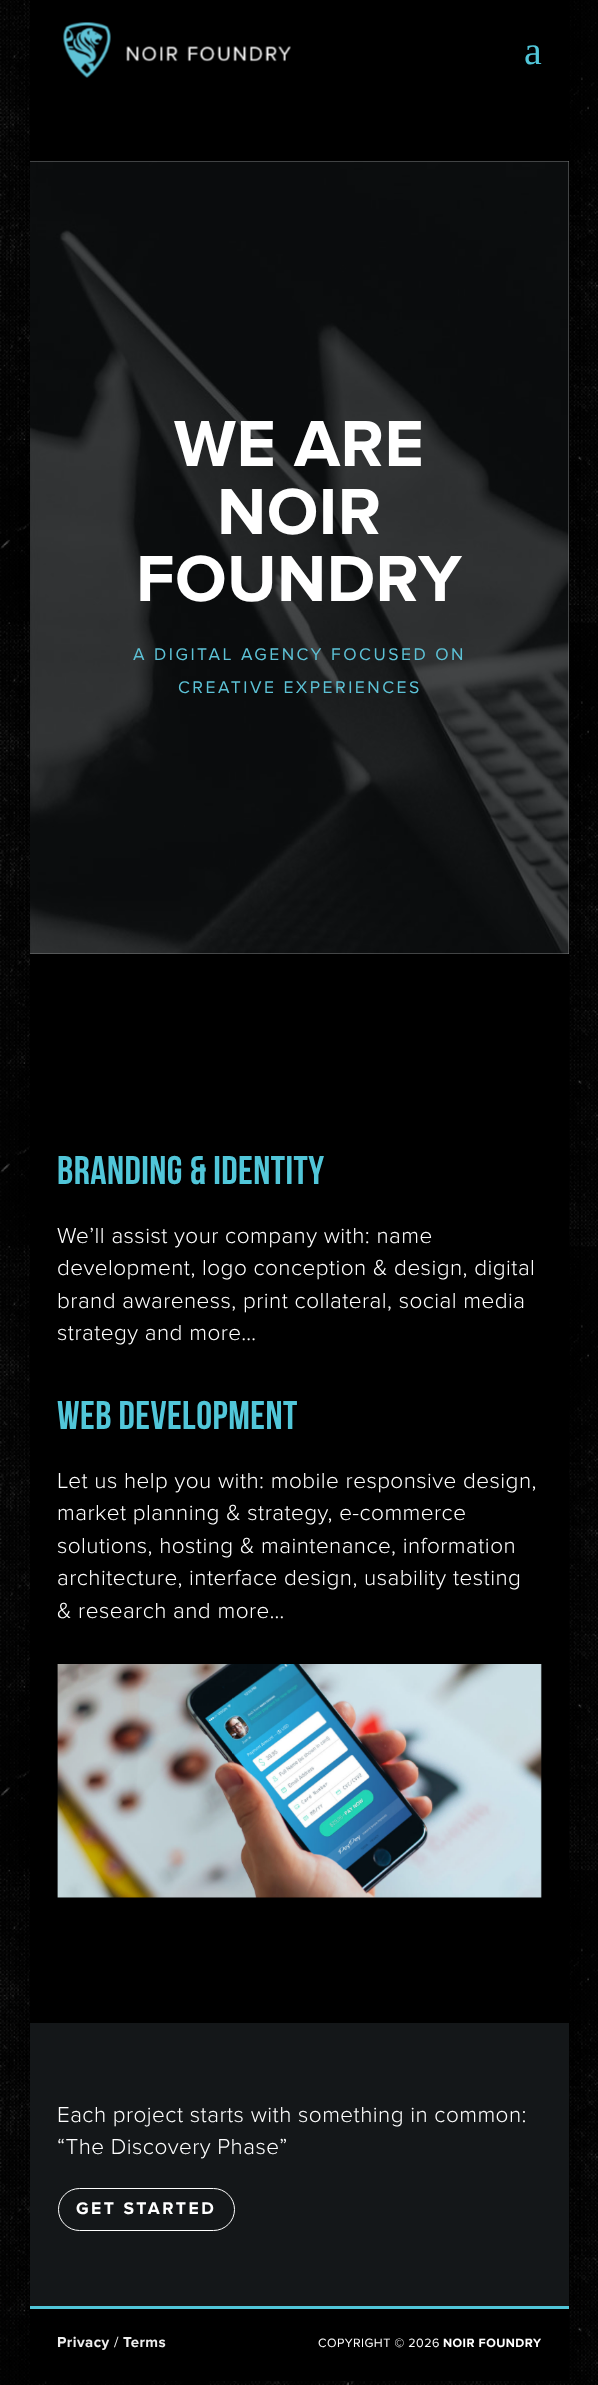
<?xml version="1.0" encoding="UTF-8"?>
<svg xmlns="http://www.w3.org/2000/svg" xmlns:xlink="http://www.w3.org/1999/xlink" width="598" height="2385">
  <rect width="100%" height="100%" fill="#ffffff" />
  <image x="0" y="0" width="598" height="2385" xlink:href="image1.png" />
  <rect x="30" width="539" height="2381" fill="#000000" fill-opacity="0.2" filter="blur(6px)" />
  <rect x="30" width="539" height="2023" fill="#000000" />
  <image x="63" y="22" width="228" height="56" xlink:href="image2.png" />
  <rect x="30" y="161" width="539" height="793" fill="#ffffff" />
  <image x="30" y="161" width="539" height="793" xlink:href="image3.png" />
  <rect x="30" y="161" width="539" height="793" fill="#141719" fill-opacity="0.5" />
  <image x="57" y="1664" width="485" height="234" xlink:href="image4.png" />
  <rect x="30" y="2023" width="539" height="283" fill="#141719" />
  <rect x="58.5" y="2188.5" width="176" height="42" rx="21" fill="none" stroke="#ffffff" />
  <rect x="30" y="2309" width="539" height="72" fill="#000000" />
  <rect x="30" y="2306" width="539" height="3" fill="#51c6d9" />
  <text x="524" y="64" style="font-family: Liberation Serif; font-size: 40px; letter-spacing: 0.45px; fill: #51c6d9">a</text>
  <text x="174" y="466" style="font-family: Proxima Nova; font-size: 67.5px; font-weight: bold; letter-spacing: 0.45px; fill: #ffffff">WE ARE</text>
  <text x="217" y="534" style="font-family: Proxima Nova; font-size: 67.5px; font-weight: bold; letter-spacing: 0.45px; fill: #ffffff">NOIR</text>
  <text x="136" y="601" style="font-family: Proxima Nova; font-size: 67.5px; font-weight: bold; letter-spacing: 0.45px; fill: #ffffff">FOUNDRY</text>
  <text x="133" y="660" style="font-family: Proxima Nova; font-size: 17.5px; letter-spacing: 2.5px; fill: #5dc2d6">A DIGITAL AGENCY FOCUSED ON</text>
  <text x="178" y="693" style="font-family: Proxima Nova; font-size: 17.5px; letter-spacing: 2.5px; fill: #5dc2d6">CREATIVE EXPERIENCES</text>
  <text x="57" y="1184" style="font-family: Bebas Neue; font-size: 40px; font-weight: bold; letter-spacing: 0.45px; fill: #51c6d9">BRANDING &amp; IDENTITY</text>
  <text x="57" y="1243" style="font-family: Proxima Nova; font-size: 22.5px; font-weight: 300; letter-spacing: 0.45px; fill: #ffffff">We’ll assist your company with: name</text>
  <text x="57" y="1275" style="font-family: Proxima Nova; font-size: 22.5px; font-weight: 300; letter-spacing: 0.45px; fill: #ffffff">development, logo conception &amp; design, digital</text>
  <text x="57" y="1308" style="font-family: Proxima Nova; font-size: 22.5px; font-weight: 300; letter-spacing: 0.45px; fill: #ffffff">brand awareness, print collateral, social media</text>
  <text x="57" y="1340" style="font-family: Proxima Nova; font-size: 22.5px; font-weight: 300; letter-spacing: 0.45px; fill: #ffffff">strategy and more…</text>
  <text x="57" y="1429" style="font-family: Bebas Neue; font-size: 40px; font-weight: bold; letter-spacing: 0.45px; fill: #51c6d9">WEB DEVELOPMENT</text>
  <text x="57" y="1488" style="font-family: Proxima Nova; font-size: 22.5px; font-weight: 300; letter-spacing: 0.45px; fill: #ffffff">Let us help you with: mobile responsive design,</text>
  <text x="57" y="1520" style="font-family: Proxima Nova; font-size: 22.5px; font-weight: 300; letter-spacing: 0.45px; fill: #ffffff">market planning &amp; strategy, e-commerce</text>
  <text x="57" y="1553" style="font-family: Proxima Nova; font-size: 22.5px; font-weight: 300; letter-spacing: 0.45px; fill: #ffffff">solutions, hosting &amp; maintenance, information</text>
  <text x="57" y="1585" style="font-family: Proxima Nova; font-size: 22.5px; font-weight: 300; letter-spacing: 0.45px; fill: #ffffff">architecture, interface design, usability testing</text>
  <text x="57" y="1618" style="font-family: Proxima Nova; font-size: 22.5px; font-weight: 300; letter-spacing: 0.45px; fill: #ffffff">&amp; research and more…</text>
  <text x="57" y="2122" style="font-family: Proxima Nova; font-size: 22.5px; font-weight: 300; letter-spacing: 0.45px; fill: #ffffff">Each project starts with something in common:</text>
  <text x="57" y="2154" style="font-family: Proxima Nova; font-size: 22.5px; font-weight: 300; letter-spacing: 0.45px; fill: #ffffff">“The Discovery Phase”</text>
  <text x="76" y="2214" style="font-family: Proxima Nova; font-size: 17.5px; font-weight: bold; letter-spacing: 2.5px; fill: #ffffff">GET STARTED</text>
  <text x="57" y="2347" style="font-family: Proxima Nova; font-size: 15px; font-weight: bold; letter-spacing: 0.45px; fill: #eeeeee">Privacy</text>
  <text x="114" y="2347" style="font-family: Proxima Nova; font-size: 15px; letter-spacing: 0.45px; fill: #ffffff">/</text>
  <text x="123" y="2347" style="font-family: Proxima Nova; font-size: 15px; font-weight: bold; letter-spacing: 0.45px; fill: #eeeeee">Terms</text>
  <text x="318" y="2347" style="font-family: Proxima Nova; font-size: 12.5px; letter-spacing: 0.45px; fill: #ffffff">COPYRIGHT © 2026</text>
  <text x="443" y="2347" style="font-family: Proxima Nova; font-size: 12.5px; font-weight: bold; letter-spacing: 0.45px; fill: #ffffff">NOIR FOUNDRY</text>
</svg>
